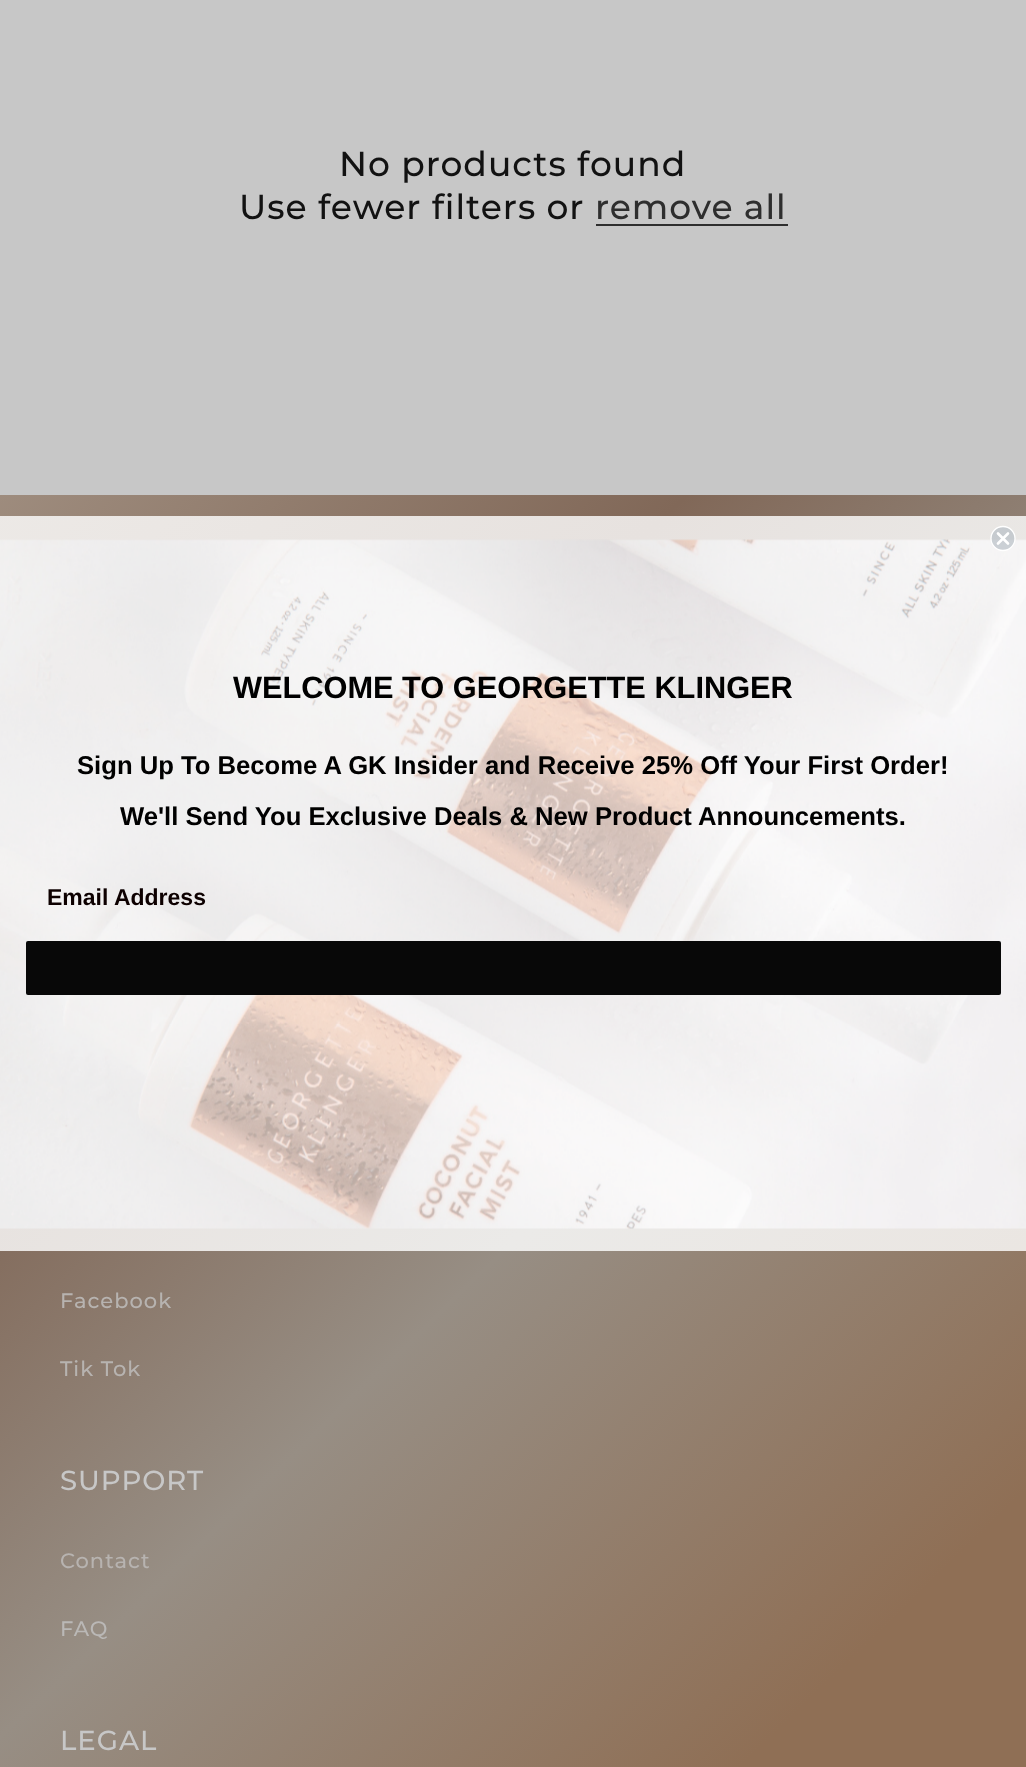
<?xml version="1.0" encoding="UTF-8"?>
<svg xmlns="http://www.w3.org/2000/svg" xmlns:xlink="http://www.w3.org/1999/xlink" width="1026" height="1767">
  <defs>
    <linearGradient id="g1" gradientUnits="userSpaceOnUse" x1="-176" y1="170" x2="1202" y2="1597"><stop offset="0.11" stop-color="#a69688" /><stop offset="0.42" stop-color="#816858" /><stop offset="0.63" stop-color="#978e84" /><stop offset="0.9" stop-color="#8f6f55" /></linearGradient>
    <linearGradient id="g2" gradientUnits="userSpaceOnUse" x1="-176" y1="170" x2="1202" y2="1597"><stop offset="0.11" stop-color="#eeebe8" /><stop offset="0.42" stop-color="#e7e2df" /><stop offset="0.63" stop-color="#ebeae8" /><stop offset="0.9" stop-color="#eae4df" /></linearGradient>
  </defs>
  <rect width="100%" height="100%" fill="#c7c7c7" />
  <rect x="596" y="224" width="192" height="2" fill="#2e2e2e" />
  <rect y="495" width="1026" height="1272" fill="url(#g1)" />
  <rect y="516" width="1026" height="735" fill="url(#g2)" />
  <image x="0" y="539" width="1026" height="690" xlink:href="image1.png" />
  <circle cx="1003" cy="538.5" r="12" fill="#b4bbc3" fill-opacity="0.65" stroke="#ffffff" stroke-width="1.3" />
  <path d="M 998 533.5 l 10 10 m -10 0 l 10 -10 z" fill="none" stroke="#ffffff" stroke-width="2.6" stroke-linecap="round" stroke-linejoin="round" />
  <rect x="26" y="941" width="975" height="54" rx="2" fill="#050505" fill-opacity="0.99" />
  <text x="339" y="176" style="font-family: Montserrat; font-size: 34.5px; font-weight: 500; letter-spacing: 1px; fill: #121212">No products found</text>
  <text x="239" y="219" style="font-family: Montserrat; font-size: 34.5px; font-weight: 500; letter-spacing: 1px; fill: #121212">Use fewer filters or</text>
  <text x="595" y="219" style="font-family: Montserrat; font-size: 34.5px; font-weight: 500; letter-spacing: 1px; fill: #2e2e2e">remove all</text>
  <text x="233" y="698" style="font-family: Liberation Sans; font-size: 30.75px; font-weight: bold; fill: #000000">WELCOME TO GEORGETTE KLINGER</text>
  <text x="77" y="774" style="font-family: Liberation Sans; font-size: 25.65px; font-weight: bold; fill: #000000">Sign Up To Become A GK Insider and Receive 25% Off Your First Order!</text>
  <text x="120" y="825" style="font-family: Liberation Sans; font-size: 25.65px; font-weight: bold; fill: #000000">We'll Send You Exclusive Deals &amp; New Product Announcements.</text>
  <text x="47" y="905" style="font-family: Liberation Sans; font-size: 23px; font-weight: bold; fill: #0d0000">Email Address</text>
  <text x="60" y="1308" style="font-family: Montserrat; font-size: 21px; font-weight: 500; letter-spacing: 1px; fill: #b7b3b0">Facebook</text>
  <text x="60" y="1376" style="font-family: Montserrat; font-size: 21px; font-weight: 500; letter-spacing: 1px; fill: #b7b3b0">Tik Tok</text>
  <text x="60" y="1490" style="font-family: Montserrat; font-size: 27.5px; font-weight: 500; letter-spacing: 1px; fill: #c7c7c7">SUPPORT</text>
  <text x="60" y="1568" style="font-family: Montserrat; font-size: 21px; font-weight: 500; letter-spacing: 1px; fill: #b7b3b0">Contact</text>
  <text x="60" y="1636" style="font-family: Montserrat; font-size: 21px; font-weight: 500; letter-spacing: 1px; fill: #bab8b6">FAQ</text>
  <text x="60" y="1750" style="font-family: Montserrat; font-size: 27.5px; font-weight: 500; letter-spacing: 1px; fill: #c7c7c7">LEGAL</text>
</svg>
